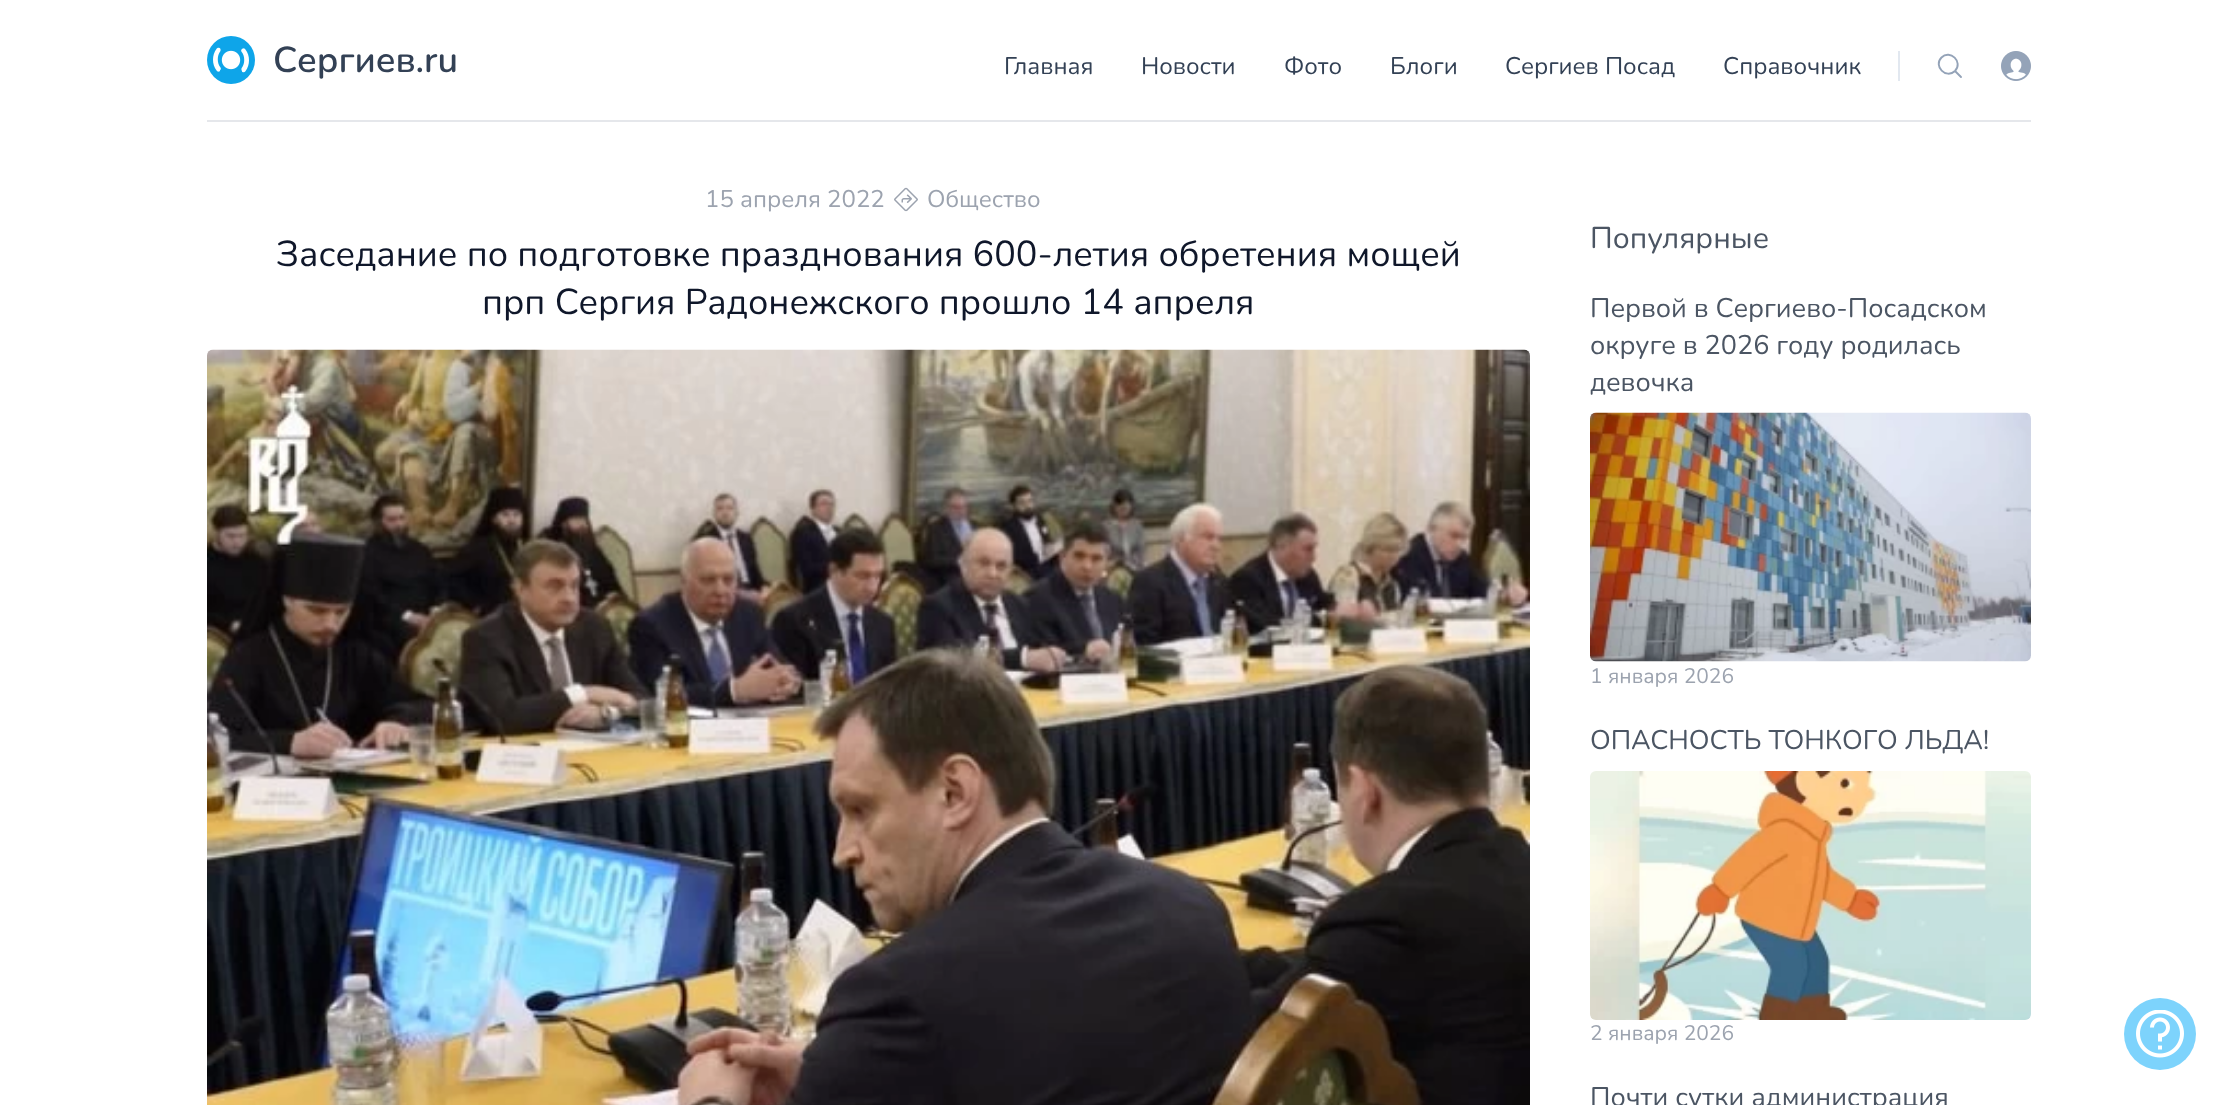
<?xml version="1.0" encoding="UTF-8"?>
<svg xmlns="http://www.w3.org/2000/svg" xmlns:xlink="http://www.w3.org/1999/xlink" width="2238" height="1105">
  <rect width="100%" height="100%" fill="#ffffff" />
  <rect x="207" y="120" width="1824" height="2" fill="#e5e7eb" />
  <circle cx="231" cy="60" r="24" fill="#0ea5e9" />
  <image x="213" y="47" width="36" height="26" xlink:href="image1.png" />
  <rect x="1898" y="51" width="2" height="30" fill="#e2e8f0" />
  <path d="M 1961 77 l -6 -6 m 0 0 c 8.5 -9 -5 -22 -13.5 -13.5 c -8.5 8.5 4.5 22 13.5 13.5 z" fill="none" stroke="#94a3b8" stroke-width="1.9" stroke-linecap="round" stroke-linejoin="round" />
  <image x="2001" y="51" width="30" height="30" xlink:href="image2.png" />
  <image x="894" y="187" width="24" height="25" xlink:href="image3.png" />
  <image x="207" y="349" width="1323" height="756" xlink:href="image4.png" />
  <image x="1590" y="412" width="441" height="250" xlink:href="image5.png" />
  <image x="1590" y="771" width="441" height="249" xlink:href="image6.png" />
  <circle cx="2160" cy="1034" r="36" fill="#7dd3fc" />
  <image x="2136" y="1010" width="48" height="48" xlink:href="image7.png" />
  <text x="273" y="72" style="font-family: Nunito; font-size: 36px; font-weight: 600; fill: #334155">Сергиев.ru</text>
  <text x="1004" y="74" style="font-family: Nunito; font-size: 24px; fill: #334155">Главная</text>
  <text x="1141" y="74" style="font-family: Nunito; font-size: 24px; fill: #334155">Новости</text>
  <text x="1284" y="74" style="font-family: Nunito; font-size: 24px; fill: #334155">Фото</text>
  <text x="1390" y="74" style="font-family: Nunito; font-size: 24px; fill: #334155">Блоги</text>
  <text x="1505" y="74" style="font-family: Nunito; font-size: 24px; fill: #334155">Сергиев Посад</text>
  <text x="1723" y="74" style="font-family: Nunito; font-size: 24px; fill: #334155">Справочник</text>
  <text x="705" y="207" style="font-family: Nunito; font-size: 24px; fill: #9ca3af">15 апреля 2022</text>
  <text x="927" y="207" style="font-family: Nunito; font-size: 24px; fill: #9ca3af">Общество</text>
  <text x="276" y="266" style="font-family: Nunito; font-size: 36px; fill: #0f172a">Заседание по подготовке празднования 600-летия обретения мощей</text>
  <text x="482" y="314" style="font-family: Nunito; font-size: 36px; fill: #0f172a">прп Сергия Радонежского прошло 14 апреля</text>
  <text x="1590" y="248" style="font-family: Nunito; font-size: 30px; fill: #4b5563">Популярные</text>
  <text x="1590" y="317" style="font-family: Nunito; font-size: 27px; fill: #4b5563">Первой в Сергиево-Посадском</text>
  <text x="1590" y="354" style="font-family: Nunito; font-size: 27px; fill: #4b5563">округе в 2026 году родилась</text>
  <text x="1590" y="391" style="font-family: Nunito; font-size: 27px; fill: #4b5563">девочка</text>
  <text x="1590" y="683" style="font-family: Nunito; font-size: 21px; fill: #9ca3af">1 января 2026</text>
  <text x="1590" y="749" style="font-family: Nunito; font-size: 27px; fill: #4b5563">ОПАСНОСТЬ ТОНКОГО ЛЬДА!</text>
  <text x="1590" y="1040" style="font-family: Nunito; font-size: 21px; fill: #9ca3af">2 января 2026</text>
  <text x="1590" y="1106" style="font-family: Nunito; font-size: 27px; fill: #4b5563">Почти сутки администрация</text>
</svg>
